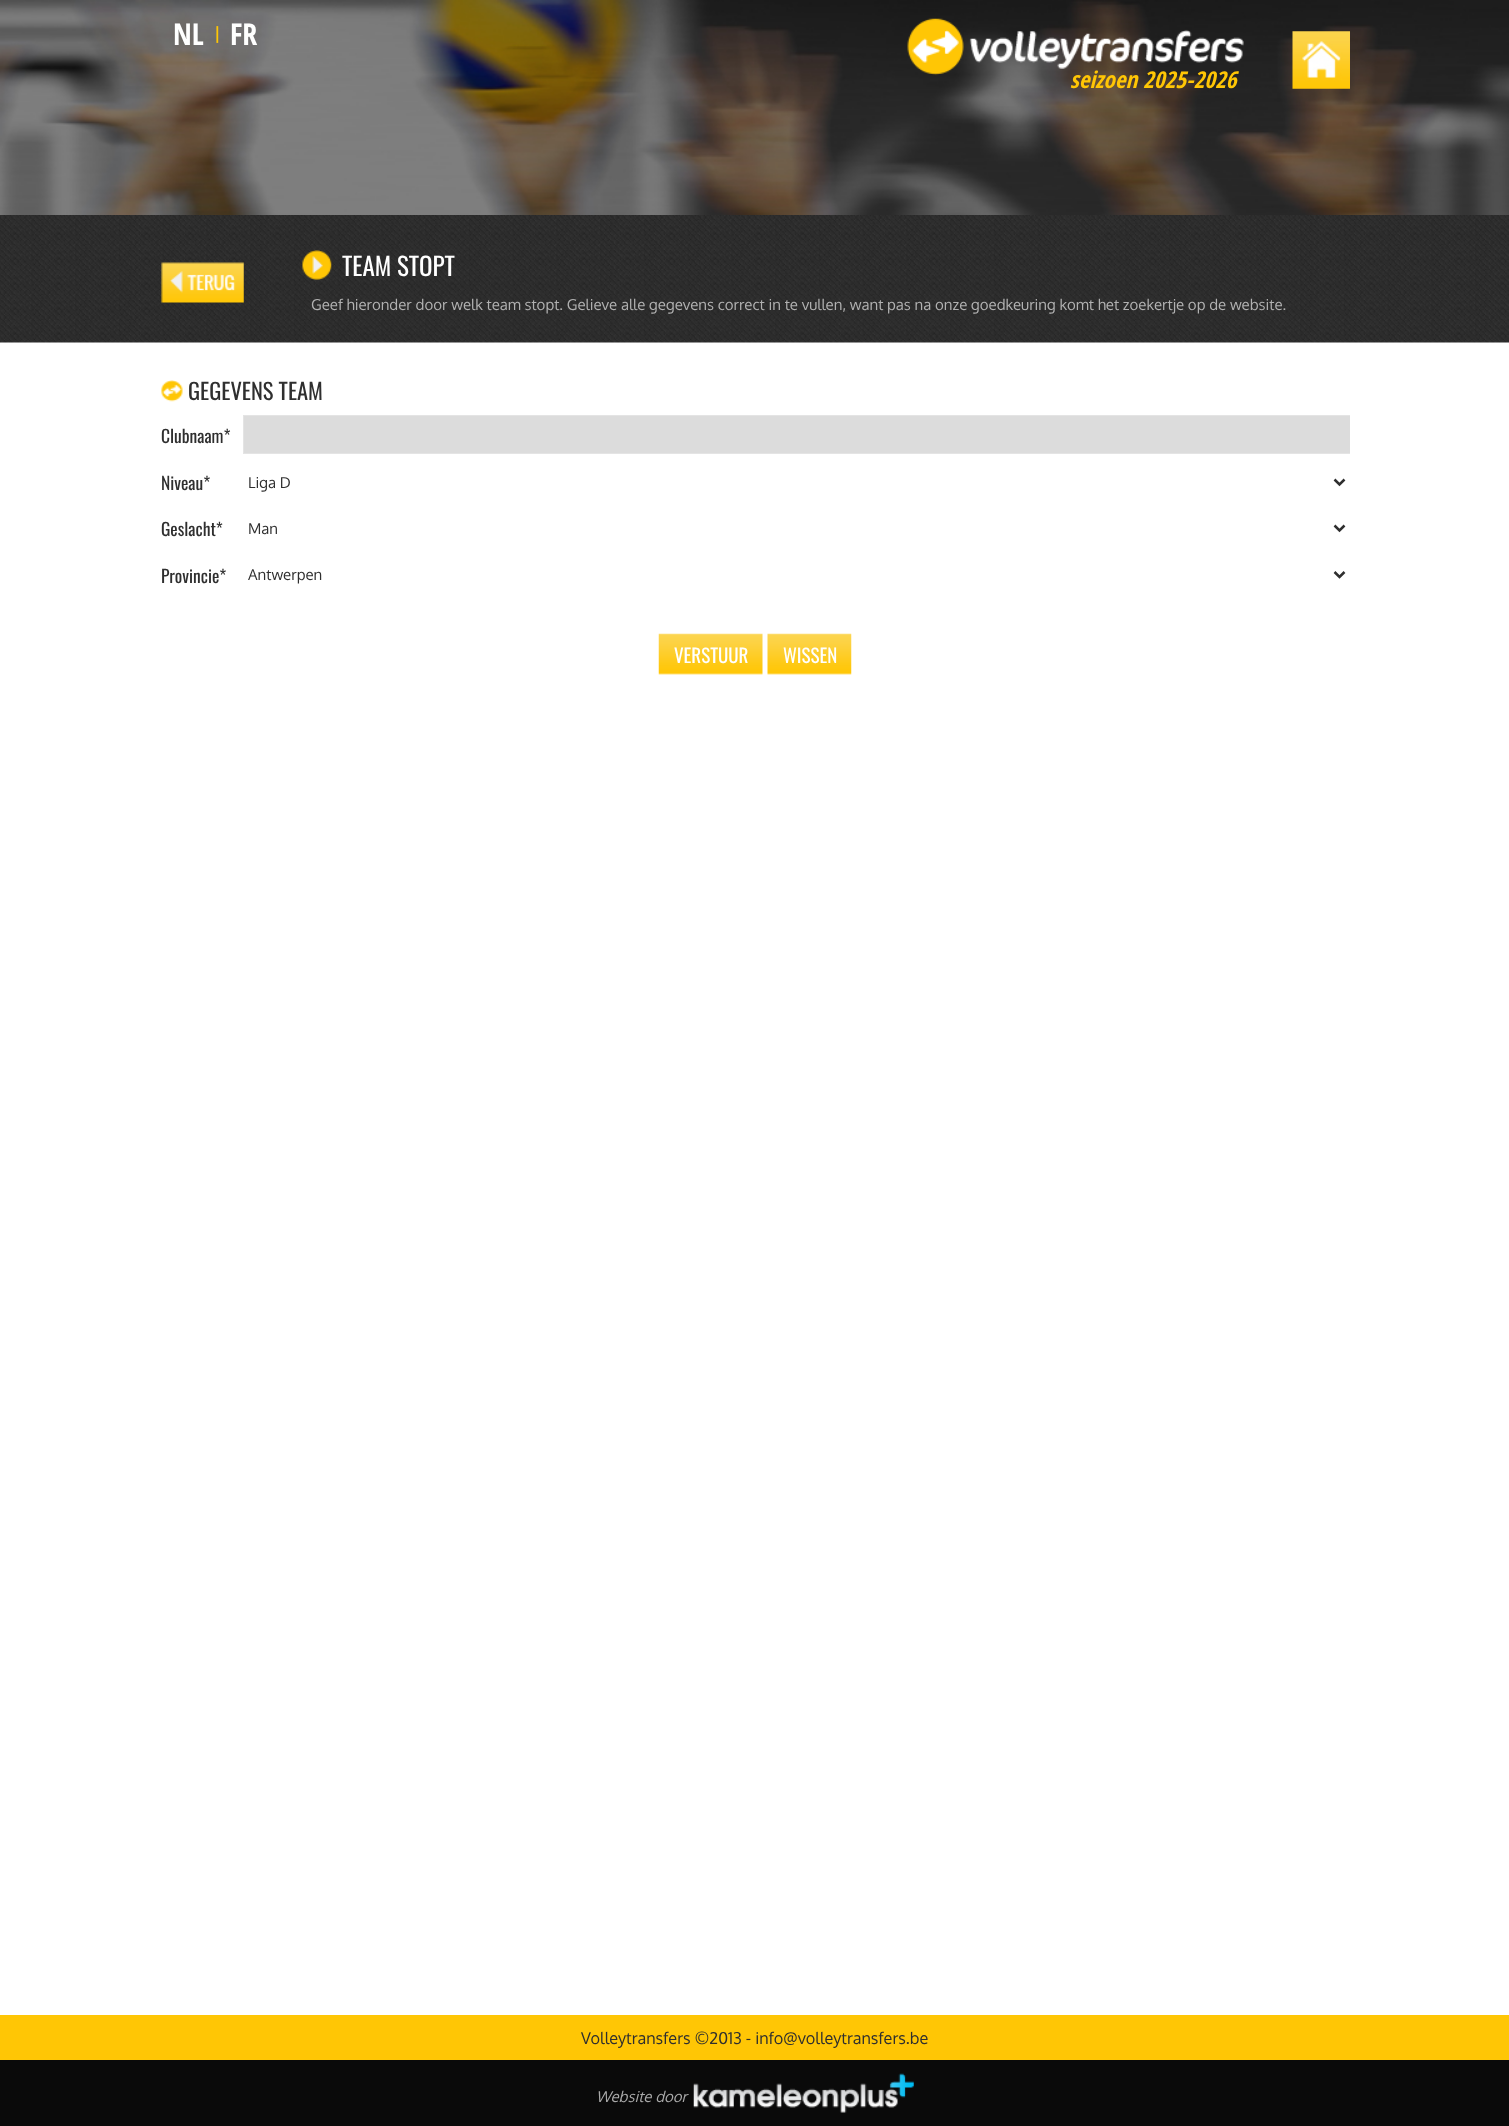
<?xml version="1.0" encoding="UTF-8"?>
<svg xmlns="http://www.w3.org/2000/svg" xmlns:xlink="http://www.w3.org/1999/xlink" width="1509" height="2126">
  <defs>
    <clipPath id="clip1"><rect x="161" y="343" width="1189" height="488" /></clipPath>
  </defs>
  <rect width="100%" height="100%" fill="#ffffff" />
  <image x="0" y="0" width="1509" height="215" xlink:href="image1.png" />
  <image x="907" y="18" width="337" height="58" xlink:href="image2.png" />
  <image x="1292" y="31" width="58" height="58" xlink:href="image3.png" />
  <image x="0" y="215" width="1509" height="128" xlink:href="image4.png" />
  <image x="161" y="262" width="83" height="41" xlink:href="image5.png" />
  <image x="302" y="250" width="30" height="30" xlink:href="image6.png" />
  <image x="161" y="380" width="22" height="22" xlink:href="image7.png" />
  <rect x="244" y="416" width="1106" height="37" fill="#dcdcdc" />
  <g clip-path="url(#clip1)">
    <rect x="243.5" y="415.5" width="1107" height="38" fill="none" stroke="#e4e4e4" />
  </g>
  <path d="M 1334.5 479.5 l 5 5 l 5 -5" fill="none" stroke="#2f2f2f" stroke-width="2.5" />
  <path d="M 1334.5 525.5 l 5 5 l 5 -5" fill="none" stroke="#2f2f2f" stroke-width="2.5" />
  <path d="M 1334.5 572 l 5 5 l 5 -5" fill="none" stroke="#2f2f2f" stroke-width="2.5" />
  <image x="658" y="633" width="105" height="42" xlink:href="image8.png" />
  <image x="767" y="633" width="85" height="42" xlink:href="image9.png" />
  <rect y="2015" width="1509" height="45" fill="#ffc605" />
  <rect y="2060" width="1509" height="66" fill="#0a0a0a" />
  <image x="693" y="2073" width="221" height="40" xlink:href="image10.png" />
  <text x="173" y="45" style="font-family: Open Sans Condensed; font-size: 30px; font-weight: bold; fill: #ffffff">NL</text>
  <text x="213" y="39" style="font-family: Open Sans Condensed; font-size: 17px; font-weight: bold; fill: #ffc605">|</text>
  <text x="230" y="45" style="font-family: Open Sans Condensed; font-size: 30px; font-weight: bold; fill: #ffffff">FR</text>
  <text x="1070" y="88" style="font-family: Open Sans Condensed; font-size: 23.25px; font-weight: bold; font-style: italic; fill: #ffc605">seizoen 2025-2026</text>
  <text x="342" y="276" style="font-family: Oswald; font-size: 25px; fill: #ffffff">TEAM STOPT</text>
  <text x="311" y="310" style="font-family: Oxygen; font-size: 15px; fill: #b1b1b1">Geef hieronder door welk team stopt. Gelieve alle gegevens correct in te vullen, want pas na onze goedkeuring komt het zoekertje op de website.</text>
  <text x="188" y="400" style="font-family: Oswald; font-size: 22.5px; fill: #2f2f2f">GEGEVENS TEAM</text>
  <text x="161" y="443" style="font-family: Oswald; font-size: 17.5px; fill: #2f2f2f">Clubnaam*</text>
  <text x="161" y="490" style="font-family: Oswald; font-size: 17.5px; fill: #2f2f2f">Niveau*</text>
  <text x="248" y="488" style="font-family: Oxygen; font-size: 15px; fill: #2f2f2f">Liga D</text>
  <text x="161" y="536" style="font-family: Oswald; font-size: 17.5px; fill: #2f2f2f">Geslacht*</text>
  <text x="248" y="534" style="font-family: Oxygen; font-size: 15px; fill: #2f2f2f">Man</text>
  <text x="161" y="583" style="font-family: Oswald; font-size: 17.5px; fill: #2f2f2f">Provincie*</text>
  <text x="248" y="580" style="font-family: Oxygen; font-size: 15px; fill: #2f2f2f">Antwerpen</text>
  <text x="674" y="663" style="font-family: Oswald; font-size: 19px; fill: #ffffff">VERSTUUR</text>
  <text x="783" y="663" style="font-family: Oswald; font-size: 19px; fill: #ffffff">WISSEN</text>
  <text x="581" y="2044" style="font-family: Oxygen; font-size: 16.25px; fill: #2f2f2f">Volleytransfers ©2013 - info@volleytransfers.be</text>
  <text x="596" y="2102" style="font-family: Oxygen; font-size: 15px; font-style: italic; fill: #a9a9a9">Website door</text>
</svg>
